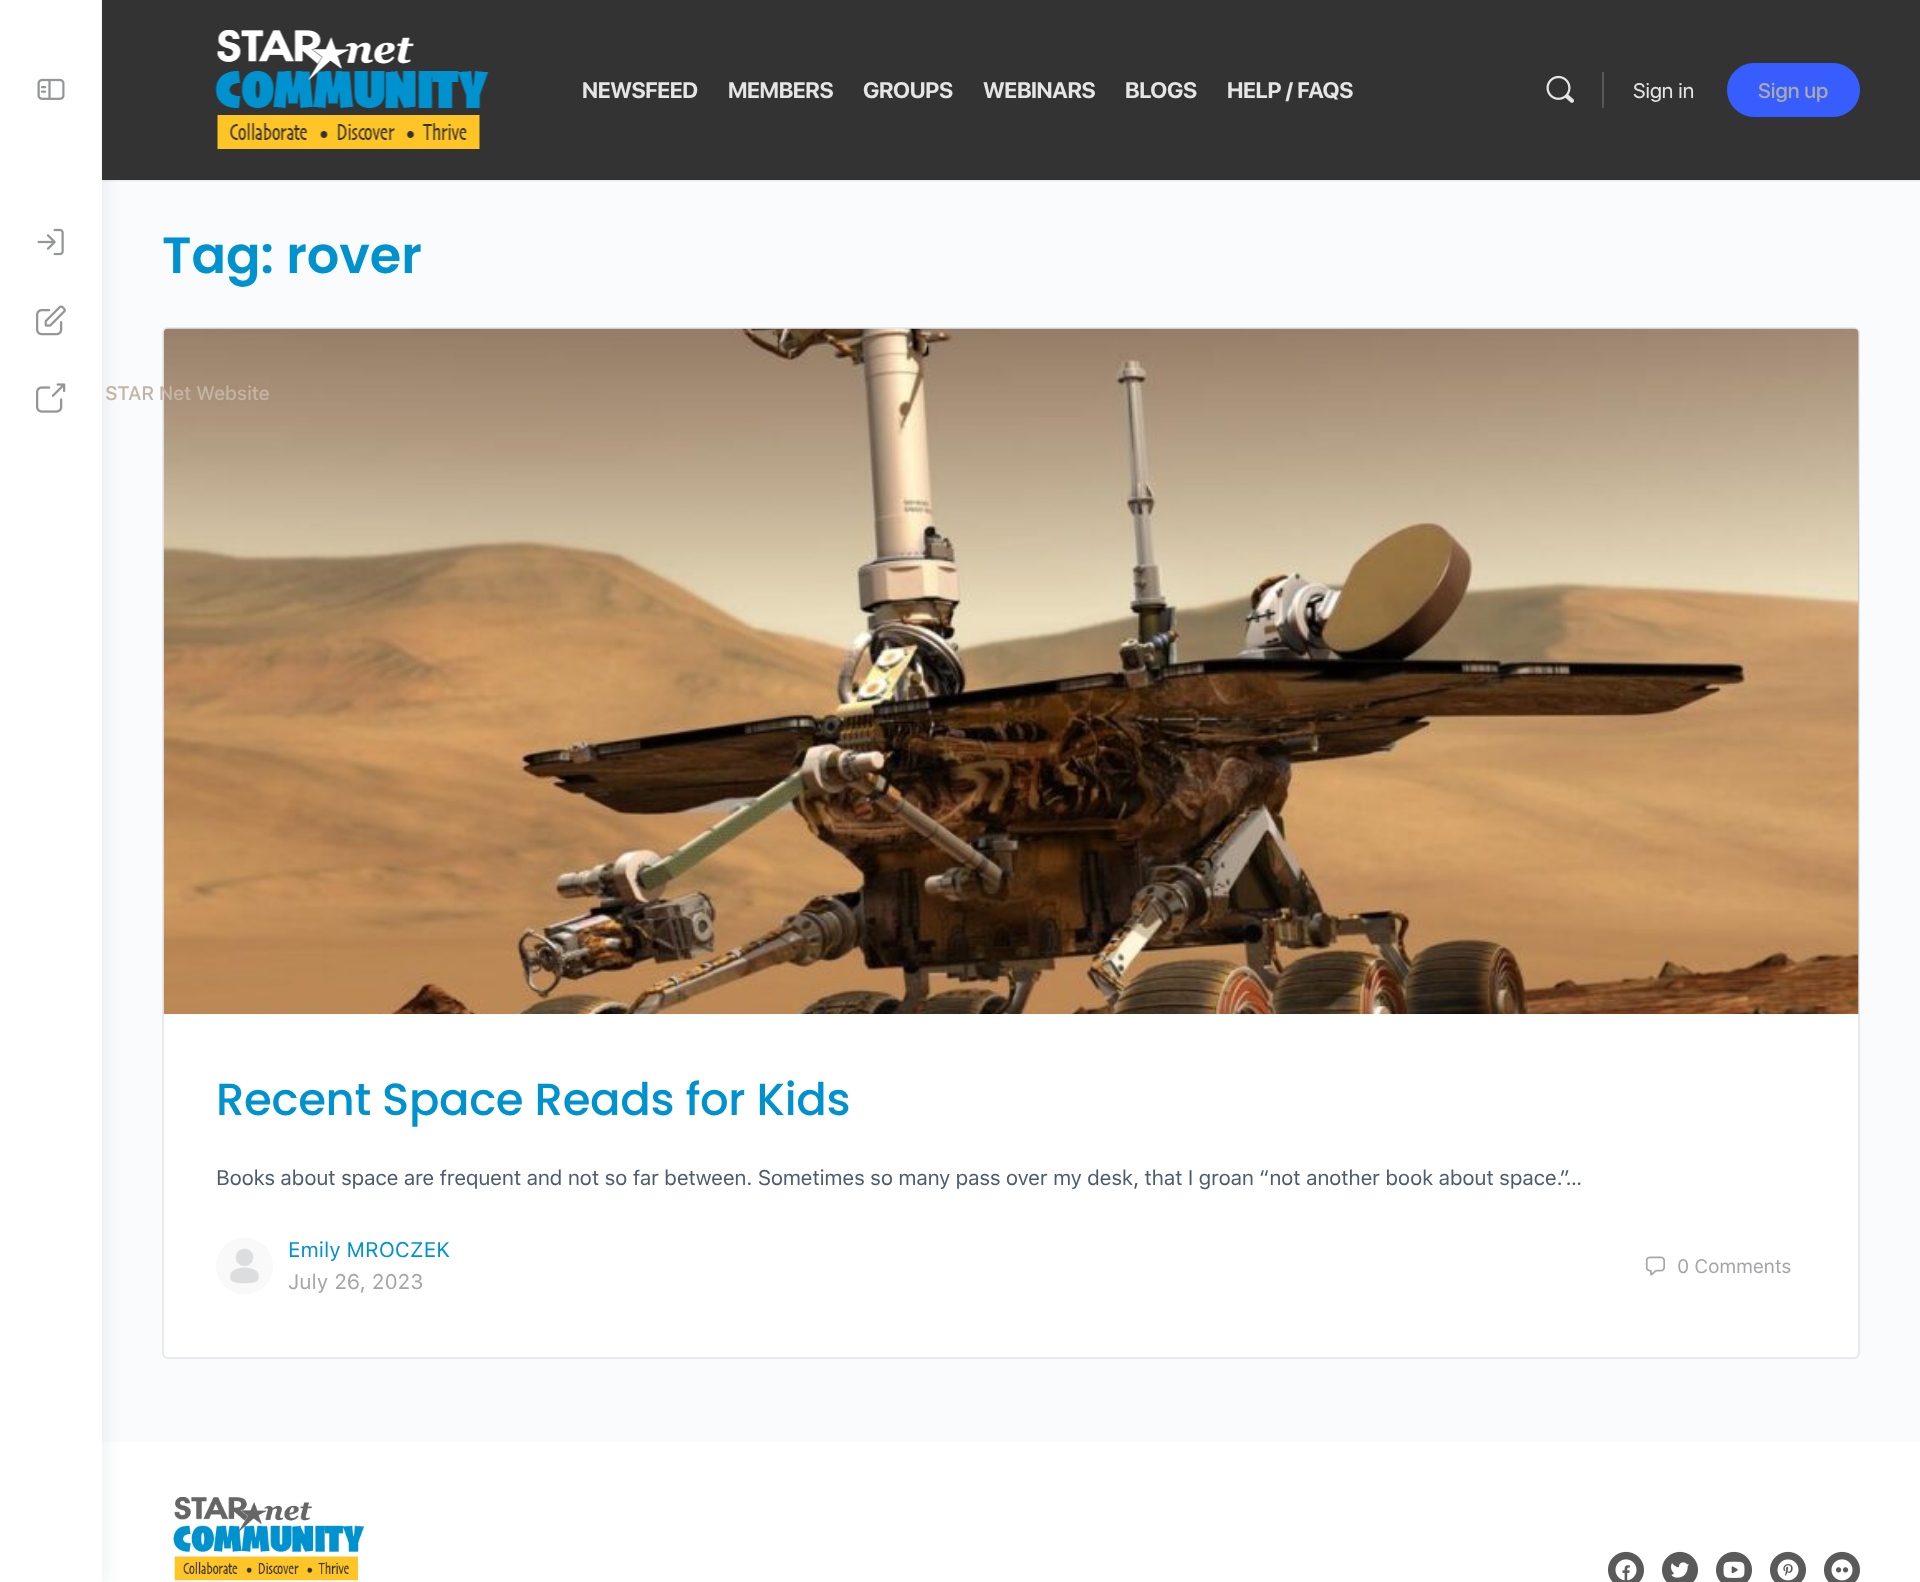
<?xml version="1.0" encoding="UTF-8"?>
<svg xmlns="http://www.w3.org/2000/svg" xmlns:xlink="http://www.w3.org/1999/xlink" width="1920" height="1582">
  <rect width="100%" height="100%" fill="#fafbfd" />
  <rect x="102" y="1442" width="1818" height="140" fill="#ffffff" />
  <rect y="5" width="102" height="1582" fill="#122b46" fill-opacity="0.1" filter="blur(10px)" />
  <rect width="102" height="1582" fill="#ffffff" />
  <rect x="102" width="1818" height="180" fill="#41476c" fill-opacity="0.15" filter="blur(1px)" />
  <rect x="102" y="180" width="1818" height="2" fill="#8b8d9d" fill-opacity="0.05" />
  <rect x="102" width="1818" height="180" fill="#323332" />
  <image x="215" y="30" width="274" height="119" xlink:href="image1.png" />
  <image x="1546" y="75" width="28" height="28" xlink:href="image2.png" />
  <rect x="1602" y="72" width="2" height="36" fill="#565756" />
  <rect x="1728" y="64" width="131" height="52" rx="26" fill="#385dff" stroke="#385dff" stroke-width="2" />
  <rect x="163" y="328" width="1696" height="1030" rx="5" fill="#ffffff" stroke="#e7e9ec" stroke-width="2" />
  <path d="M 169 329 h 1685 c 3 0 5 2 5 5 v 680 h -1695 v -680 c 0 -3 2 -5 5 -5 z" fill="#c6c6c6" />
  <image x="163" y="328" width="1696" height="686" xlink:href="image3.png" />
  <image x="216" y="1238" width="57" height="56" xlink:href="image4.png" />
  <image x="1645" y="1256" width="20" height="20" xlink:href="image5.png" />
  <image x="173" y="1497" width="192" height="84" xlink:href="image6.png" />
  <image x="1608" y="1551" width="36" height="31" xlink:href="image7.png" />
  <image x="1662" y="1551" width="36" height="31" xlink:href="image8.png" />
  <image x="1716" y="1551" width="36" height="31" xlink:href="image9.png" />
  <image x="1770" y="1551" width="36" height="31" xlink:href="image10.png" />
  <image x="1824" y="1551" width="36" height="31" xlink:href="image11.png" />
  <image x="37" y="78" width="28" height="22" xlink:href="image12.png" />
  <image x="37" y="228" width="27" height="28" xlink:href="image13.png" />
  <image x="36" y="305" width="30" height="31" xlink:href="image14.png" />
  <image x="36" y="383" width="30" height="30" xlink:href="image15.png" />
  <text x="582" y="98" style="font-family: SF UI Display; font-size: 22.5px; font-weight: bold; letter-spacing: -0.36px; fill: #e5e5e5">NEWSFEED</text>
  <text x="728" y="98" style="font-family: SF UI Display; font-size: 22.5px; font-weight: bold; letter-spacing: -0.36px; fill: #e5e5e5">MEMBERS</text>
  <text x="863" y="98" style="font-family: SF UI Display; font-size: 22.5px; font-weight: bold; letter-spacing: -0.36px; fill: #e5e5e5">GROUPS</text>
  <text x="983" y="98" style="font-family: SF UI Display; font-size: 22.5px; font-weight: bold; letter-spacing: -0.36px; fill: #e5e5e5">WEBINARS</text>
  <text x="1125" y="98" style="font-family: SF UI Display; font-size: 22.5px; font-weight: bold; letter-spacing: -0.36px; fill: #e5e5e5">BLOGS</text>
  <text x="1227" y="98" style="font-family: SF UI Display; font-size: 22.5px; font-weight: bold; letter-spacing: -0.36px; fill: #e5e5e5">HELP / FAQS</text>
  <text x="1633" y="98" style="font-family: SF UI Display; font-size: 21px; fill: #e5e5e5">Sign in</text>
  <text x="1758" y="98" style="font-family: SF UI Display; font-size: 21px; font-weight: 500; fill: #aaaaaa">Sign up</text>
  <text x="162" y="273" style="font-family: Poppins; font-size: 51px; font-weight: 600; fill: #0092cf">Tag: rover</text>
  <text x="216" y="1115" style="font-family: Poppins; font-size: 45px; font-weight: 500; letter-spacing: -0.36px; fill: #0092cf">Recent Space Reads for Kids</text>
  <text x="216" y="1185" style="font-family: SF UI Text; font-size: 21px; letter-spacing: -0.36px; fill: #4d5c6d">Books about space are frequent and not so far between. Sometimes so many pass over my desk, that I groan “not another book about space.”…</text>
  <text x="288" y="1257" style="font-family: SF UI Text; font-size: 21px; fill: #0092cf">Emily MROCZEK</text>
  <text x="288" y="1289" style="font-family: SF UI Text; font-size: 21px; fill: #a3a5a9">July 26, 2023</text>
  <text x="1677" y="1273" style="font-family: SF UI Text; font-size: 19.5px; letter-spacing: -0.25px; fill: #a3a5a9">0 Comments</text>
  <text x="105" y="400" style="font-family: SF UI Text; font-size: 19.5px; font-weight: 500; letter-spacing: -0.36px; fill: #c4b4a5">STAR Net Website</text>
</svg>
